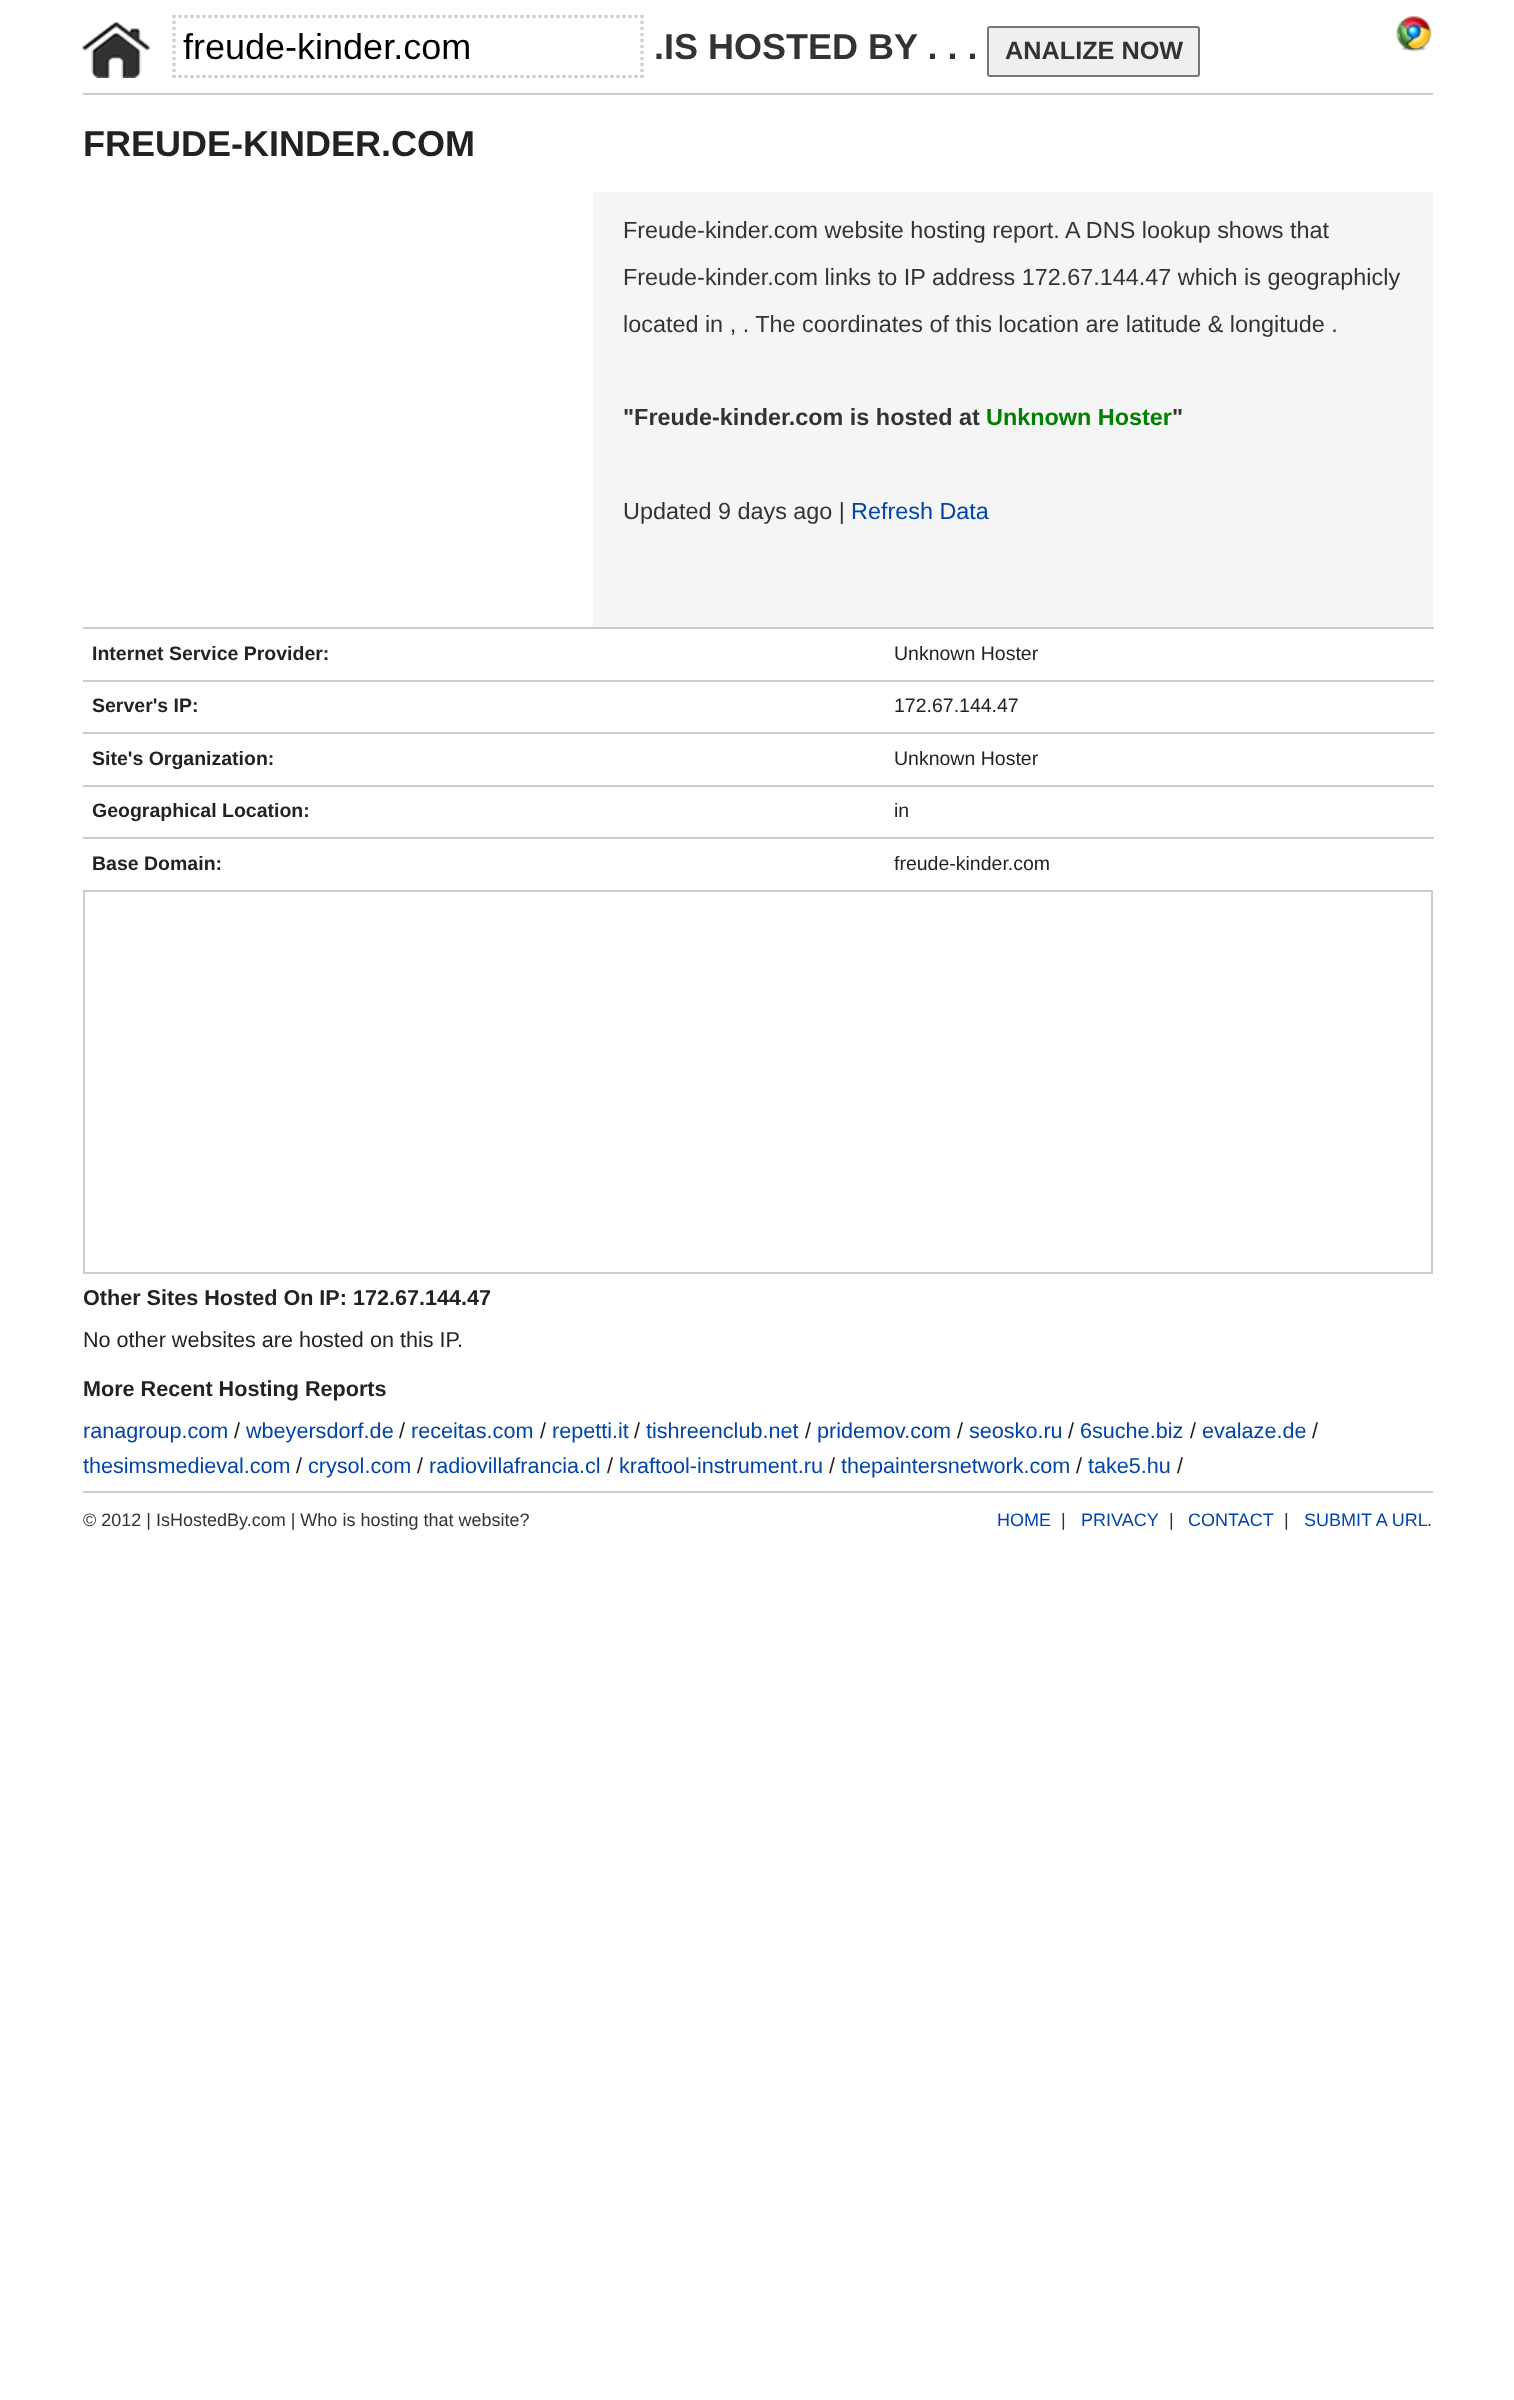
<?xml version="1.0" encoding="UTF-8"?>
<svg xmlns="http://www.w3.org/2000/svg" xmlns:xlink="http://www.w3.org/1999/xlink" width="1514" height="2400">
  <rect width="100%" height="100%" fill="#ffffff" />
  <rect x="83" y="93" width="1350" height="2" fill="#cccccc" />
  <image x="82" y="22" width="68" height="56" xlink:href="image1.png" />
  <path d="M 172.5 16.5 h 471" fill="none" stroke="#cccccc" stroke-width="3" stroke-dasharray="3 3" />
  <path d="M 642 15 v 63" fill="none" stroke="#cccccc" stroke-width="3" stroke-dasharray="3 3" />
  <path d="M 172.5 76.5 h 471" fill="none" stroke="#cccccc" stroke-width="3" stroke-dasharray="3 3" />
  <path d="M 174 15 v 63" fill="none" stroke="#cccccc" stroke-width="3" stroke-dasharray="3 3" />
  <rect x="988" y="27" width="211" height="49" rx="2" fill="#efefef" stroke="#767676" stroke-width="2" />
  <image x="1396" y="16" width="36" height="36" xlink:href="image2.png" />
  <rect x="593" y="192" width="840" height="435" fill="#f5f5f5" />
  <rect x="83" y="627" width="1351" height="2" fill="#cccccc" />
  <rect x="83" y="680" width="1351" height="2" fill="#cccccc" />
  <rect x="83" y="732" width="1351" height="2" fill="#cccccc" />
  <rect x="83" y="785" width="1351" height="2" fill="#cccccc" />
  <rect x="83" y="837" width="1351" height="2" fill="#cccccc" />
  <rect x="84" y="891" width="1348" height="382" fill="none" stroke="#cccccc" stroke-width="2" />
  <rect x="83" y="1491" width="1350" height="2" fill="#cccccc" />
  <text x="183" y="59" style="font-family: Liberation Sans; font-size: 36px; fill: #000000">freude-kinder.com</text>
  <text x="654" y="59" style="font-family: Liberation Sans; font-size: 36px; font-weight: bold; fill: #333333">.IS HOSTED BY . . .</text>
  <text x="1005" y="59" style="font-family: Liberation Sans; font-size: 25.25px; font-weight: bold; fill: #333333">ANALIZE NOW</text>
  <text x="83" y="156" style="font-family: Liberation Sans; font-size: 36px; font-weight: bold; fill: #222222">FREUDE-KINDER.COM</text>
  <text x="623" y="238" style="font-family: Liberation Sans; font-size: 23.4px; fill: #333333">Freude-kinder.com website hosting report. A DNS lookup shows that</text>
  <text x="623" y="285" style="font-family: Liberation Sans; font-size: 23.4px; fill: #333333">Freude-kinder.com links to IP address 172.67.144.47 which is geographicly</text>
  <text x="623" y="332" style="font-family: Liberation Sans; font-size: 23.4px; fill: #333333">located in , . The coordinates of this location are latitude &amp; longitude .</text>
  <text x="623" y="425" style="font-family: Liberation Sans; font-size: 23.4px; font-weight: bold; fill: #333333">"Freude-kinder.com is hosted at</text>
  <text x="986" y="425" style="font-family: Liberation Sans; font-size: 23.4px; font-weight: bold; fill: #008000">Unknown Hoster</text>
  <text x="1172" y="425" style="font-family: Liberation Sans; font-size: 23.4px; font-weight: bold; fill: #333333">"</text>
  <text x="623" y="519" style="font-family: Liberation Sans; font-size: 23.4px; fill: #333333">Updated 9 days ago |</text>
  <text x="851" y="519" style="font-family: Liberation Sans; font-size: 23.4px; fill: #0044aa">Refresh Data</text>
  <text x="92" y="660" style="font-family: Liberation Sans; font-size: 19.5px; font-weight: bold; fill: #222222">Internet Service Provider:</text>
  <text x="894" y="660" style="font-family: Liberation Sans; font-size: 19.5px; fill: #222222">Unknown Hoster</text>
  <text x="92" y="712" style="font-family: Liberation Sans; font-size: 19.5px; font-weight: bold; fill: #222222">Server's IP:</text>
  <text x="894" y="712" style="font-family: Liberation Sans; font-size: 19.5px; fill: #222222">172.67.144.47</text>
  <text x="92" y="765" style="font-family: Liberation Sans; font-size: 19.5px; font-weight: bold; fill: #222222">Site's Organization:</text>
  <text x="894" y="765" style="font-family: Liberation Sans; font-size: 19.5px; fill: #222222">Unknown Hoster</text>
  <text x="92" y="817" style="font-family: Liberation Sans; font-size: 19.5px; font-weight: bold; fill: #222222">Geographical Location:</text>
  <text x="894" y="817" style="font-family: Liberation Sans; font-size: 19.5px; fill: #222222">in</text>
  <text x="92" y="870" style="font-family: Liberation Sans; font-size: 19.5px; font-weight: bold; fill: #222222">Base Domain:</text>
  <text x="894" y="870" style="font-family: Liberation Sans; font-size: 19.5px; fill: #222222">freude-kinder.com</text>
  <text x="83" y="1305" style="font-family: Liberation Sans; font-size: 21.6px; font-weight: bold; fill: #222222">Other Sites Hosted On IP: 172.67.144.47</text>
  <text x="83" y="1347" style="font-family: Liberation Sans; font-size: 21.6px; fill: #222222">No other websites are hosted on this IP.</text>
  <text x="83" y="1396" style="font-family: Liberation Sans; font-size: 21.6px; font-weight: bold; fill: #222222">More Recent Hosting Reports</text>
  <text x="83" y="1438" style="font-family: Liberation Sans; font-size: 21.6px; fill: #0044aa">ranagroup.com</text>
  <text x="234" y="1438" style="font-family: Liberation Sans; font-size: 21.6px; fill: #222222">/</text>
  <text x="246" y="1438" style="font-family: Liberation Sans; font-size: 21.6px; fill: #0044aa">wbeyersdorf.de</text>
  <text x="399" y="1438" style="font-family: Liberation Sans; font-size: 21.6px; fill: #222222">/</text>
  <text x="411" y="1438" style="font-family: Liberation Sans; font-size: 21.6px; fill: #0044aa">receitas.com</text>
  <text x="540" y="1438" style="font-family: Liberation Sans; font-size: 21.6px; fill: #222222">/</text>
  <text x="552" y="1438" style="font-family: Liberation Sans; font-size: 21.6px; fill: #0044aa">repetti.it</text>
  <text x="634" y="1438" style="font-family: Liberation Sans; font-size: 21.6px; fill: #222222">/</text>
  <text x="646" y="1438" style="font-family: Liberation Sans; font-size: 21.6px; fill: #0044aa">tishreenclub.net</text>
  <text x="805" y="1438" style="font-family: Liberation Sans; font-size: 21.6px; fill: #222222">/</text>
  <text x="817" y="1438" style="font-family: Liberation Sans; font-size: 21.6px; fill: #0044aa">pridemov.com</text>
  <text x="957" y="1438" style="font-family: Liberation Sans; font-size: 21.6px; fill: #222222">/</text>
  <text x="969" y="1438" style="font-family: Liberation Sans; font-size: 21.6px; fill: #0044aa">seosko.ru</text>
  <text x="1068" y="1438" style="font-family: Liberation Sans; font-size: 21.6px; fill: #222222">/</text>
  <text x="1080" y="1438" style="font-family: Liberation Sans; font-size: 21.6px; fill: #0044aa">6suche.biz</text>
  <text x="1190" y="1438" style="font-family: Liberation Sans; font-size: 21.6px; fill: #222222">/</text>
  <text x="1202" y="1438" style="font-family: Liberation Sans; font-size: 21.6px; fill: #0044aa">evalaze.de</text>
  <text x="1312" y="1438" style="font-family: Liberation Sans; font-size: 21.6px; fill: #222222">/</text>
  <text x="83" y="1473" style="font-family: Liberation Sans; font-size: 21.6px; fill: #0044aa">thesimsmedieval.com</text>
  <text x="296" y="1473" style="font-family: Liberation Sans; font-size: 21.6px; fill: #222222">/</text>
  <text x="308" y="1473" style="font-family: Liberation Sans; font-size: 21.6px; fill: #0044aa">crysol.com</text>
  <text x="417" y="1473" style="font-family: Liberation Sans; font-size: 21.6px; fill: #222222">/</text>
  <text x="429" y="1473" style="font-family: Liberation Sans; font-size: 21.6px; fill: #0044aa">radiovillafrancia.cl</text>
  <text x="607" y="1473" style="font-family: Liberation Sans; font-size: 21.6px; fill: #222222">/</text>
  <text x="619" y="1473" style="font-family: Liberation Sans; font-size: 21.6px; fill: #0044aa">kraftool-instrument.ru</text>
  <text x="829" y="1473" style="font-family: Liberation Sans; font-size: 21.6px; fill: #222222">/</text>
  <text x="841" y="1473" style="font-family: Liberation Sans; font-size: 21.6px; fill: #0044aa">thepaintersnetwork.com</text>
  <text x="1076" y="1473" style="font-family: Liberation Sans; font-size: 21.6px; fill: #222222">/</text>
  <text x="1088" y="1473" style="font-family: Liberation Sans; font-size: 21.6px; fill: #0044aa">take5.hu</text>
  <text x="1177" y="1473" style="font-family: Liberation Sans; font-size: 21.6px; fill: #222222">/</text>
  <text x="83" y="1526" style="font-family: Liberation Sans; font-size: 18px; fill: #333333">© 2012 | IsHostedBy.com | Who is hosting that website?</text>
  <text x="997" y="1526" style="font-family: Liberation Sans; font-size: 18px; fill: #0044aa">HOME</text>
  <text x="1061" y="1526" style="font-family: Liberation Sans; font-size: 18px; fill: #333333">|</text>
  <text x="1081" y="1526" style="font-family: Liberation Sans; font-size: 18px; fill: #0044aa">PRIVACY</text>
  <text x="1169" y="1526" style="font-family: Liberation Sans; font-size: 18px; fill: #333333">|</text>
  <text x="1188" y="1526" style="font-family: Liberation Sans; font-size: 18px; fill: #0044aa">CONTACT</text>
  <text x="1284" y="1526" style="font-family: Liberation Sans; font-size: 18px; fill: #333333">|</text>
  <text x="1304" y="1526" style="font-family: Liberation Sans; font-size: 18px; fill: #0044aa">SUBMIT A URL</text>
  <text x="1427" y="1526" style="font-family: Liberation Sans; font-size: 18px; fill: #333333">.</text>
</svg>
